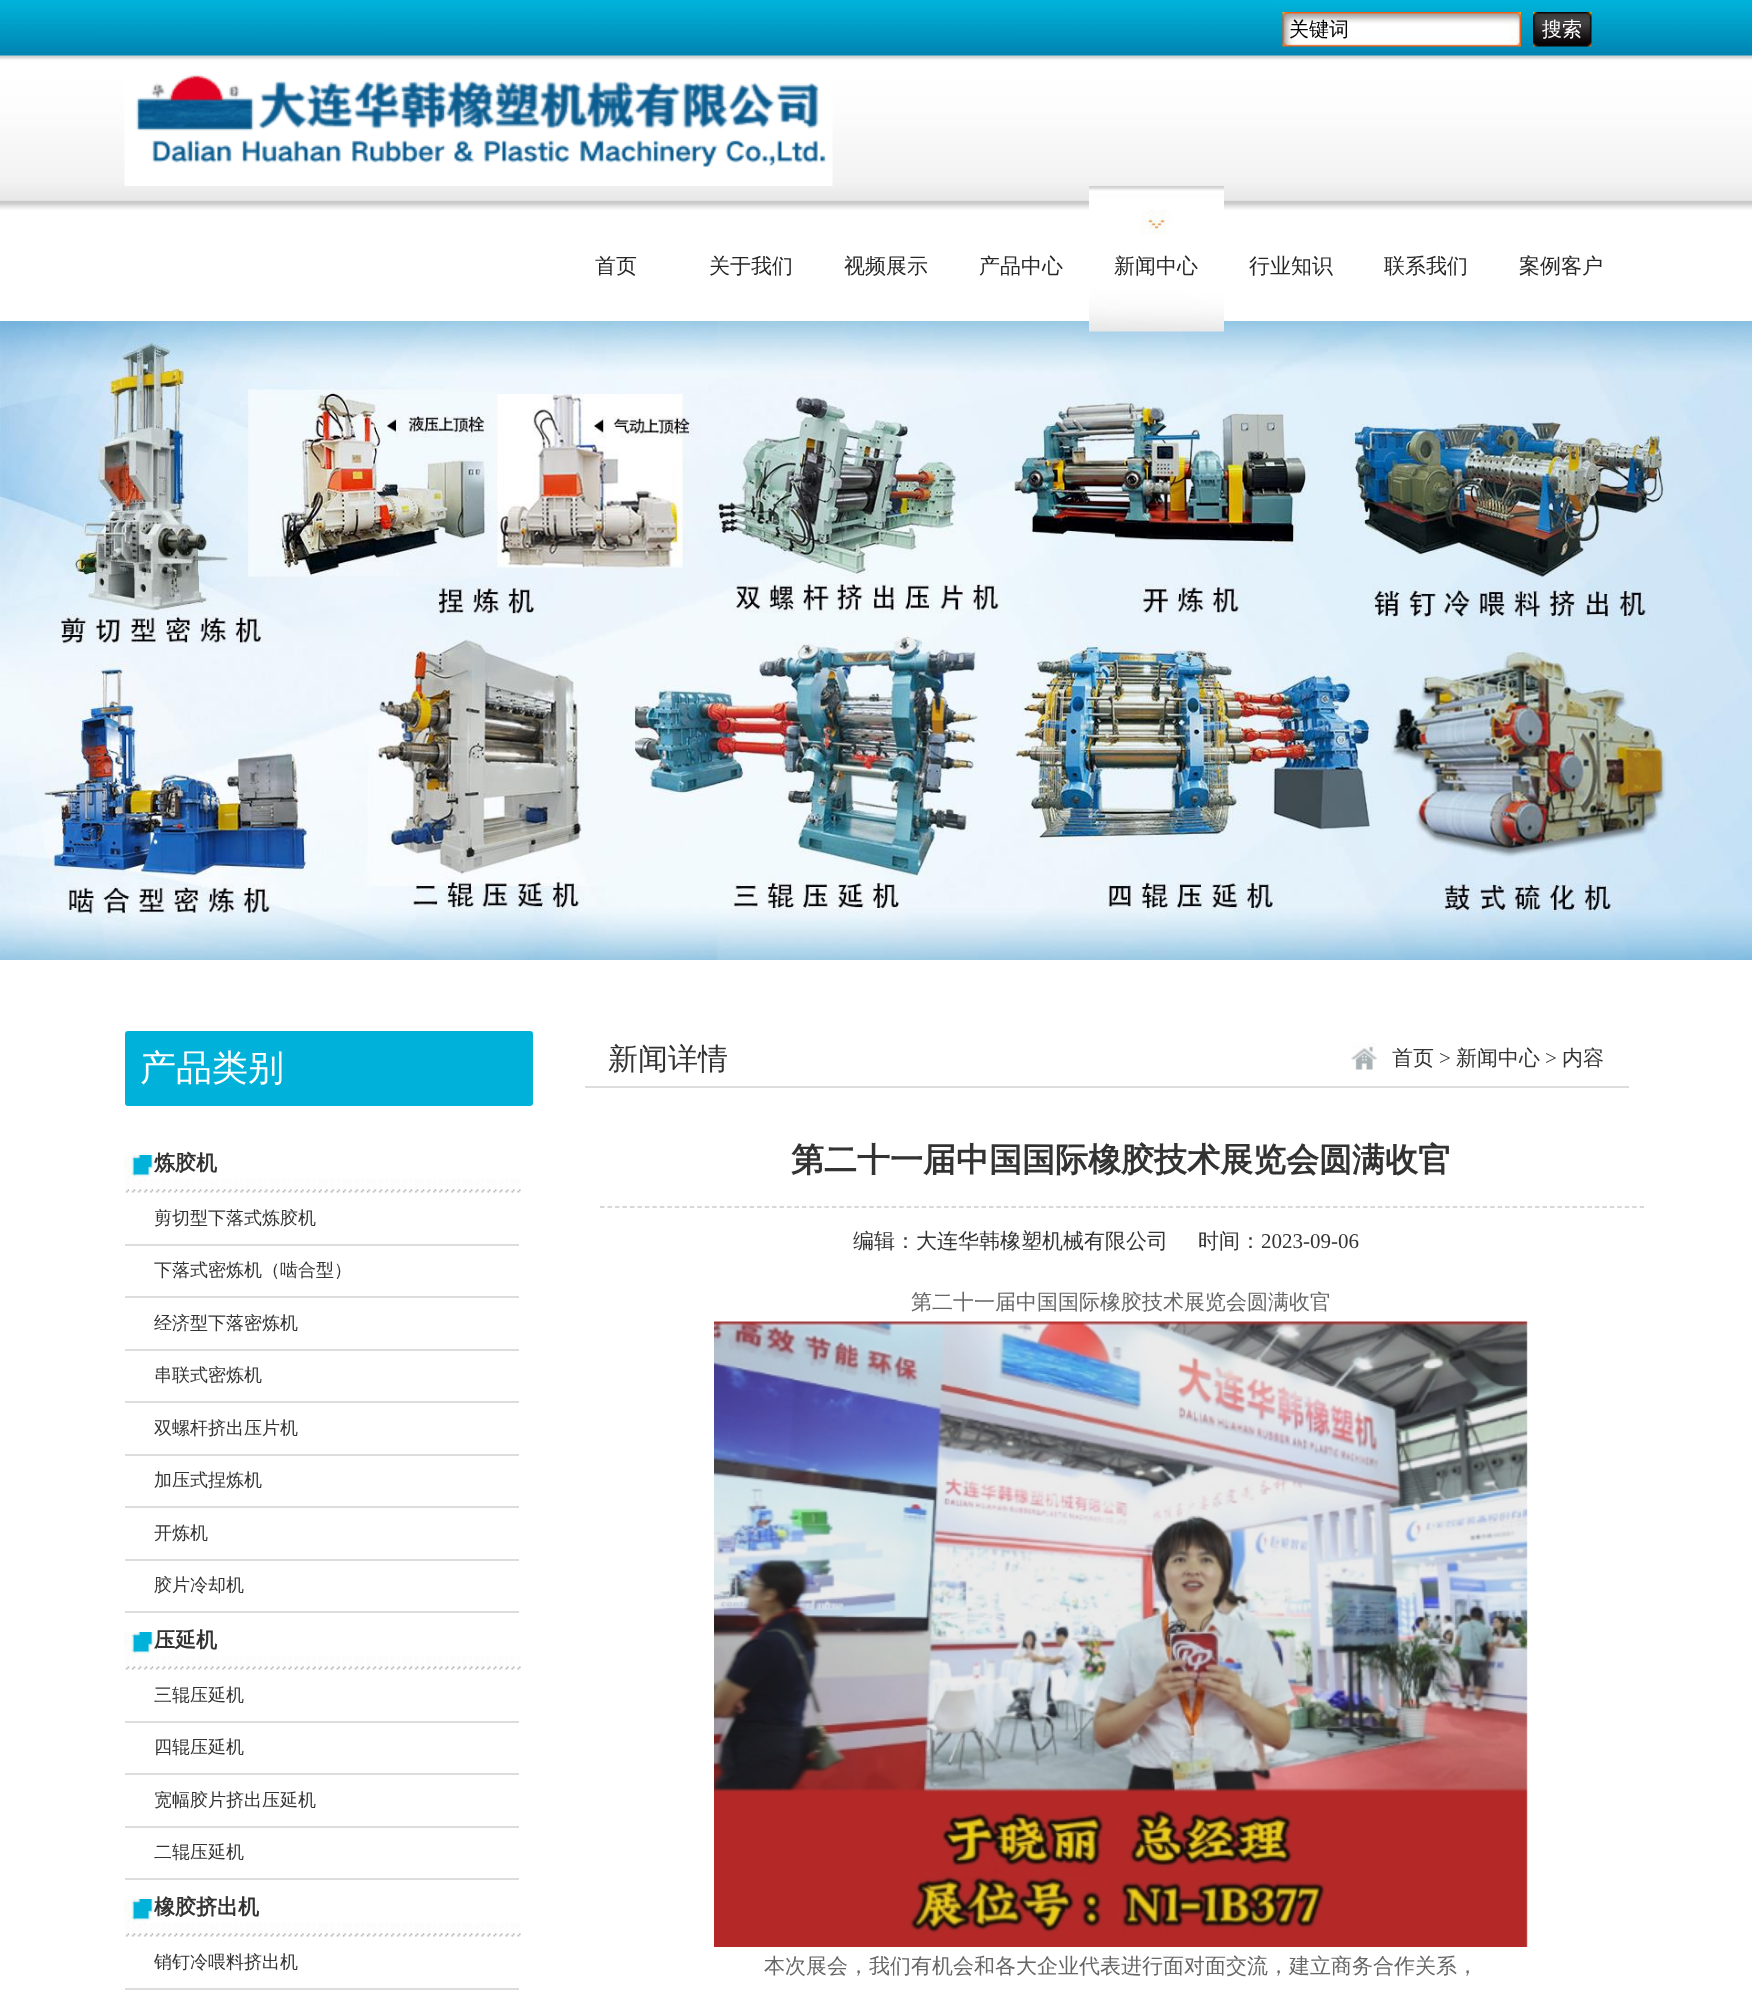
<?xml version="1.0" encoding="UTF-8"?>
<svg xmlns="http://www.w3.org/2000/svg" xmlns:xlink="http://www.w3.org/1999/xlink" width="1752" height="1998">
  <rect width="100%" height="100%" fill="#ffffff" />
  <image x="0" y="0" width="1752" height="210" xlink:href="image1.png" />
  <image x="1282" y="12" width="239" height="35" xlink:href="image2.png" />
  <image x="1533" y="12" width="59" height="35" xlink:href="image3.png" />
  <image x="124" y="74" width="709" height="112" xlink:href="image4.png" />
  <image x="0" y="321" width="1752" height="639" xlink:href="image6.png" />
  <image x="1089" y="186" width="135" height="146" xlink:href="image5.png" />
  <rect x="126" y="1032" width="406" height="73" rx="2" fill="#00b2d9" stroke="#00b2d9" stroke-width="2" />
  <image x="124" y="1155" width="397" height="38" xlink:href="image7.png" />
  <rect x="125" y="1244" width="394" height="2" fill="#dddddd" />
  <rect x="125" y="1296" width="394" height="2" fill="#dddddd" />
  <rect x="125" y="1349" width="394" height="2" fill="#dddddd" />
  <rect x="125" y="1401" width="394" height="2" fill="#dddddd" />
  <rect x="125" y="1454" width="394" height="2" fill="#dddddd" />
  <rect x="125" y="1506" width="394" height="2" fill="#dddddd" />
  <rect x="125" y="1559" width="394" height="2" fill="#dddddd" />
  <rect x="125" y="1611" width="394" height="2" fill="#dddddd" />
  <image x="124" y="1632" width="397" height="38" xlink:href="image7.png" />
  <rect x="125" y="1721" width="394" height="2" fill="#dddddd" />
  <rect x="125" y="1773" width="394" height="2" fill="#dddddd" />
  <rect x="125" y="1826" width="394" height="2" fill="#dddddd" />
  <rect x="125" y="1878" width="394" height="2" fill="#dddddd" />
  <image x="124" y="1899" width="397" height="38" xlink:href="image7.png" />
  <rect x="125" y="1988" width="394" height="2" fill="#dddddd" />
  <rect x="585" y="1086" width="1044" height="2" fill="#dddddd" />
  <image x="1351" y="1043" width="26" height="27" xlink:href="image8.png" />
  <path d="M 600 1207 h 1044" fill="none" stroke="#cccccc" stroke-width="1.5" stroke-dasharray="4.5 2.98" />
  <image x="714" y="1321" width="814" height="626" xlink:href="image9.png" />
  <text x="1289" y="36" style="font-family: WenQuanYi Zen Hei; font-size: 20px; font-weight: 500; fill: #000000">关键词</text>
  <text x="1542" y="36" style="font-family: WenQuanYi Zen Hei; font-size: 20px; font-weight: 500; fill: #ffffff">搜索</text>
  <text x="595" y="273" style="font-family: WenQuanYi Zen Hei; font-size: 21px; font-weight: 500; fill: #272727">首页</text>
  <text x="709" y="273" style="font-family: WenQuanYi Zen Hei; font-size: 21px; font-weight: 500; fill: #272727">关于我们</text>
  <text x="844" y="273" style="font-family: WenQuanYi Zen Hei; font-size: 21px; font-weight: 500; fill: #272727">视频展示</text>
  <text x="979" y="273" style="font-family: WenQuanYi Zen Hei; font-size: 21px; font-weight: 500; fill: #272727">产品中心</text>
  <text x="1114" y="273" style="font-family: WenQuanYi Zen Hei; font-size: 21px; font-weight: 500; fill: #272727">新闻中心</text>
  <text x="1249" y="273" style="font-family: WenQuanYi Zen Hei; font-size: 21px; font-weight: 500; fill: #272727">行业知识</text>
  <text x="1384" y="273" style="font-family: WenQuanYi Zen Hei; font-size: 21px; font-weight: 500; fill: #272727">联系我们</text>
  <text x="1519" y="273" style="font-family: WenQuanYi Zen Hei; font-size: 21px; font-weight: 500; fill: #272727">案例客户</text>
  <text x="140" y="1080" style="font-family: WenQuanYi Zen Hei; font-size: 36px; font-weight: 500; fill: #ffffff">产品类别</text>
  <text x="154" y="1170" style="font-family: WenQuanYi Zen Hei; font-size: 21px; font-weight: bold; fill: #333333">炼胶机</text>
  <text x="154" y="1224" style="font-family: WenQuanYi Zen Hei; font-size: 18px; font-weight: 500; fill: #333333">剪切型下落式炼胶机</text>
  <text x="154" y="1276" style="font-family: WenQuanYi Zen Hei; font-size: 18px; font-weight: 500; fill: #333333">下落式密炼机（啮合型）</text>
  <text x="154" y="1329" style="font-family: WenQuanYi Zen Hei; font-size: 18px; font-weight: 500; fill: #333333">经济型下落密炼机</text>
  <text x="154" y="1381" style="font-family: WenQuanYi Zen Hei; font-size: 18px; font-weight: 500; fill: #333333">串联式密炼机</text>
  <text x="154" y="1434" style="font-family: WenQuanYi Zen Hei; font-size: 18px; font-weight: 500; fill: #333333">双螺杆挤出压片机</text>
  <text x="154" y="1486" style="font-family: WenQuanYi Zen Hei; font-size: 18px; font-weight: 500; fill: #333333">加压式捏炼机</text>
  <text x="154" y="1539" style="font-family: WenQuanYi Zen Hei; font-size: 18px; font-weight: 500; fill: #333333">开炼机</text>
  <text x="154" y="1591" style="font-family: WenQuanYi Zen Hei; font-size: 18px; font-weight: 500; fill: #333333">胶片冷却机</text>
  <text x="154" y="1647" style="font-family: WenQuanYi Zen Hei; font-size: 21px; font-weight: bold; fill: #333333">压延机</text>
  <text x="154" y="1701" style="font-family: WenQuanYi Zen Hei; font-size: 18px; font-weight: 500; fill: #333333">三辊压延机</text>
  <text x="154" y="1753" style="font-family: WenQuanYi Zen Hei; font-size: 18px; font-weight: 500; fill: #333333">四辊压延机</text>
  <text x="154" y="1806" style="font-family: WenQuanYi Zen Hei; font-size: 18px; font-weight: 500; fill: #333333">宽幅胶片挤出压延机</text>
  <text x="154" y="1858" style="font-family: WenQuanYi Zen Hei; font-size: 18px; font-weight: 500; fill: #333333">二辊压延机</text>
  <text x="154" y="1914" style="font-family: WenQuanYi Zen Hei; font-size: 21px; font-weight: bold; fill: #333333">橡胶挤出机</text>
  <text x="154" y="1968" style="font-family: WenQuanYi Zen Hei; font-size: 18px; font-weight: 500; fill: #333333">销钉冷喂料挤出机</text>
  <text x="608" y="1069" style="font-family: WenQuanYi Zen Hei; font-size: 30px; font-weight: 500; fill: #333333">新闻详情</text>
  <text x="1392" y="1065" style="font-family: WenQuanYi Zen Hei; font-size: 21px; font-weight: 500; fill: #333333">首页</text>
  <text x="1439" y="1065" style="font-family: Liberation Serif; font-size: 21px; fill: #333333">&gt;</text>
  <text x="1456" y="1065" style="font-family: WenQuanYi Zen Hei; font-size: 21px; font-weight: 500; fill: #333333">新闻中心</text>
  <text x="1545" y="1065" style="font-family: Liberation Serif; font-size: 21px; fill: #333333">&gt;</text>
  <text x="1562" y="1065" style="font-family: WenQuanYi Zen Hei; font-size: 21px; font-weight: 500; fill: #333333">内容</text>
  <text x="791" y="1171" style="font-family: WenQuanYi Zen Hei; font-size: 33px; font-weight: bold; fill: #333333">第二十一届中国国际橡胶技术展览会圆满收官</text>
  <text x="853" y="1248" style="font-family: WenQuanYi Zen Hei; font-size: 21px; font-weight: 500; fill: #333333">编辑：大连华韩橡塑机械有限公司</text>
  <text x="1198" y="1248" style="font-family: WenQuanYi Zen Hei; font-size: 21px; font-weight: 500; fill: #333333">时间：</text>
  <text x="1261" y="1248" style="font-family: Liberation Serif; font-size: 21px; fill: #333333">2023-09-06</text>
  <text x="911" y="1309" style="font-family: WenQuanYi Zen Hei; font-size: 21px; font-weight: 500; fill: #666666">第二十一届中国国际橡胶技术展览会圆满收官</text>
  <text x="764" y="1973" style="font-family: WenQuanYi Zen Hei; font-size: 21px; font-weight: 500; fill: #666666">本次展会，我们有机会和各大企业代表进行面对面交流，建立商务合作关系，</text>
</svg>
